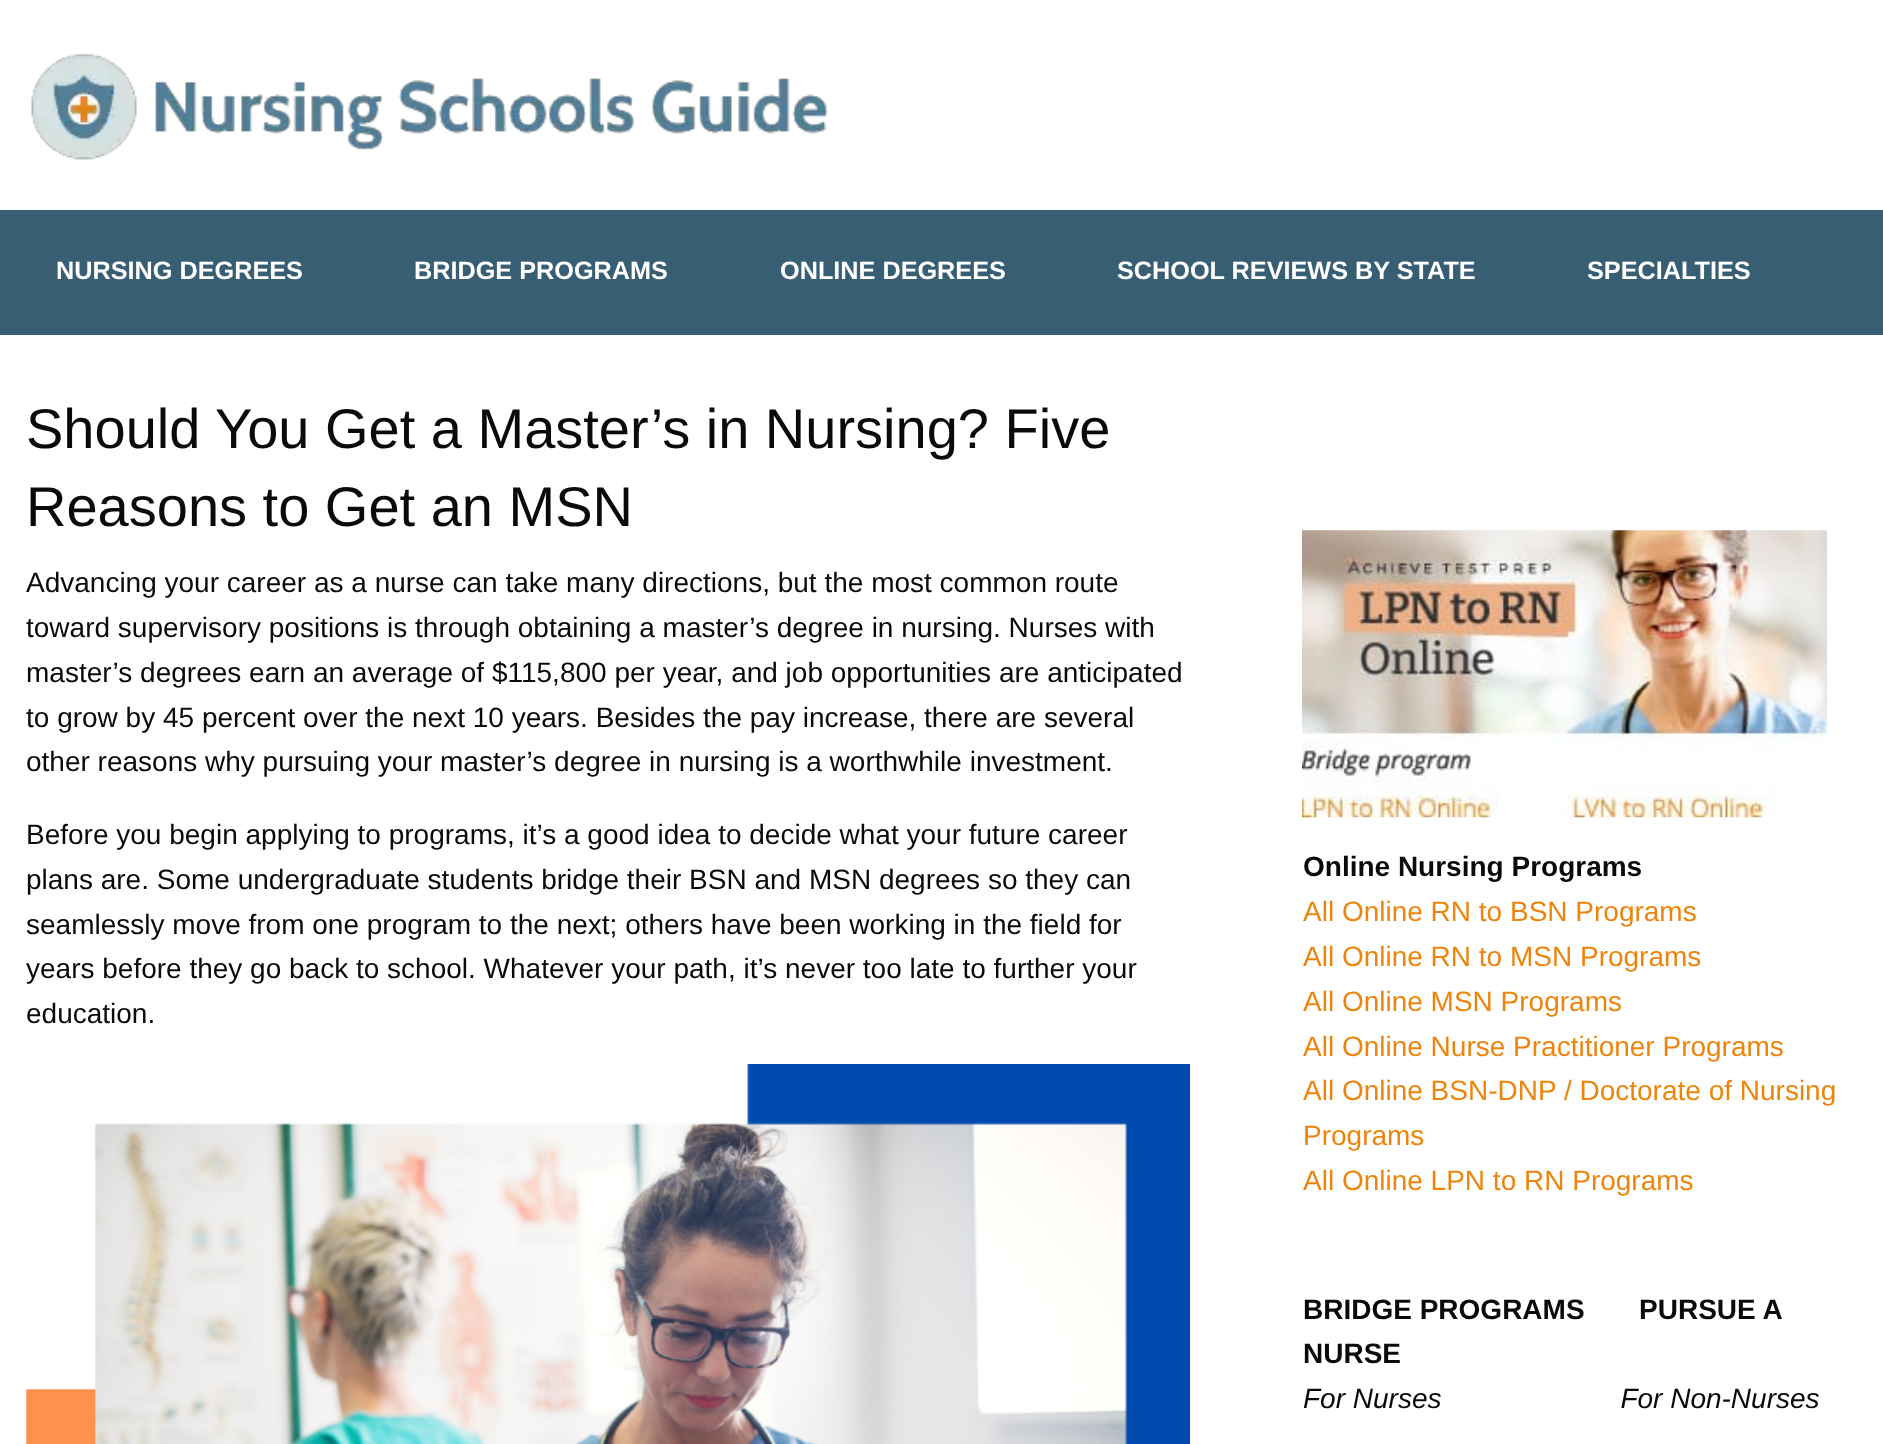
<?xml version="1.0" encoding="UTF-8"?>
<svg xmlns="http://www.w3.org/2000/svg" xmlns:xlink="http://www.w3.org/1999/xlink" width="1883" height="1444">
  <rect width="100%" height="100%" fill="#ffffff" />
  <rect y="210" width="1883" height="125" fill="#375e72" />
  <image x="31" y="53" width="797" height="107" xlink:href="image1.png" />
  <image x="26" y="1064" width="1164" height="380" xlink:href="image2.png" />
  <image x="1302" y="530" width="525" height="288" xlink:href="image3.png" />
  <text x="56" y="279" style="font-family: Liberation Sans; font-size: 25.25px; font-weight: bold; fill: #ffffff">NURSING DEGREES</text>
  <text x="414" y="279" style="font-family: Liberation Sans; font-size: 25.25px; font-weight: bold; fill: #ffffff">BRIDGE PROGRAMS</text>
  <text x="780" y="279" style="font-family: Liberation Sans; font-size: 25.25px; font-weight: bold; fill: #ffffff">ONLINE DEGREES</text>
  <text x="1117" y="279" style="font-family: Liberation Sans; font-size: 25.25px; font-weight: bold; fill: #ffffff">SCHOOL REVIEWS BY STATE</text>
  <text x="1587" y="279" style="font-family: Liberation Sans; font-size: 25.25px; font-weight: bold; fill: #ffffff">SPECIALTIES</text>
  <text x="26" y="448" style="font-family: Liberation Sans; font-size: 56px; fill: #0a0a0a">Should You Get a Master’s in Nursing? Five</text>
  <text x="26" y="526" style="font-family: Liberation Sans; font-size: 56px; fill: #0a0a0a">Reasons to Get an MSN</text>
  <text x="26" y="592" style="font-family: Liberation Sans; font-size: 28px; fill: #0a0a0a">Advancing your career as a nurse can take many directions, but the most common route</text>
  <text x="26" y="637" style="font-family: Liberation Sans; font-size: 28px; fill: #0a0a0a">toward supervisory positions is through obtaining a master’s degree in nursing. Nurses with</text>
  <text x="26" y="682" style="font-family: Liberation Sans; font-size: 28px; fill: #0a0a0a">master’s degrees earn an average of $115,800 per year, and job opportunities are anticipated</text>
  <text x="26" y="727" style="font-family: Liberation Sans; font-size: 28px; fill: #0a0a0a">to grow by 45 percent over the next 10 years. Besides the pay increase, there are several</text>
  <text x="26" y="771" style="font-family: Liberation Sans; font-size: 28px; fill: #0a0a0a">other reasons why pursuing your master’s degree in nursing is a worthwhile investment.</text>
  <text x="26" y="844" style="font-family: Liberation Sans; font-size: 28px; fill: #0a0a0a">Before you begin applying to programs, it’s a good idea to decide what your future career</text>
  <text x="26" y="889" style="font-family: Liberation Sans; font-size: 28px; fill: #0a0a0a">plans are. Some undergraduate students bridge their BSN and MSN degrees so they can</text>
  <text x="26" y="934" style="font-family: Liberation Sans; font-size: 28px; fill: #0a0a0a">seamlessly move from one program to the next; others have been working in the field for</text>
  <text x="26" y="978" style="font-family: Liberation Sans; font-size: 28px; fill: #0a0a0a">years before they go back to school. Whatever your path, it’s never too late to further your</text>
  <text x="26" y="1023" style="font-family: Liberation Sans; font-size: 28px; fill: #0a0a0a">education.</text>
  <text x="1303" y="876" style="font-family: Liberation Sans; font-size: 28px; font-weight: bold; fill: #0a0a0a">Online Nursing Programs</text>
  <text x="1303" y="921" style="font-family: Liberation Sans; font-size: 28px; fill: #ed840b">All Online RN to BSN Programs</text>
  <text x="1303" y="966" style="font-family: Liberation Sans; font-size: 28px; fill: #ed840b">All Online RN to MSN Programs</text>
  <text x="1303" y="1011" style="font-family: Liberation Sans; font-size: 28px; fill: #ed840b">All Online MSN Programs</text>
  <text x="1303" y="1056" style="font-family: Liberation Sans; font-size: 28px; fill: #ed840b">All Online Nurse Practitioner Programs</text>
  <text x="1303" y="1100" style="font-family: Liberation Sans; font-size: 28px; fill: #ed840b">All Online BSN-DNP / Doctorate of Nursing</text>
  <text x="1303" y="1145" style="font-family: Liberation Sans; font-size: 28px; fill: #ed840b">Programs</text>
  <text x="1303" y="1190" style="font-family: Liberation Sans; font-size: 28px; fill: #ed840b">All Online LPN to RN Programs</text>
  <text x="1303" y="1319" style="font-family: Liberation Sans; font-size: 28px; font-weight: bold; fill: #0a0a0a" xml:space="preserve">BRIDGE PROGRAMS       PURSUE A</text>
  <text x="1303" y="1363" style="font-family: Liberation Sans; font-size: 28px; font-weight: bold; fill: #0a0a0a">NURSE</text>
  <text x="1303" y="1408" style="font-family: Liberation Sans; font-size: 28px; font-style: italic; fill: #0a0a0a" xml:space="preserve">For Nurses                       For Non-Nurses</text>
</svg>
